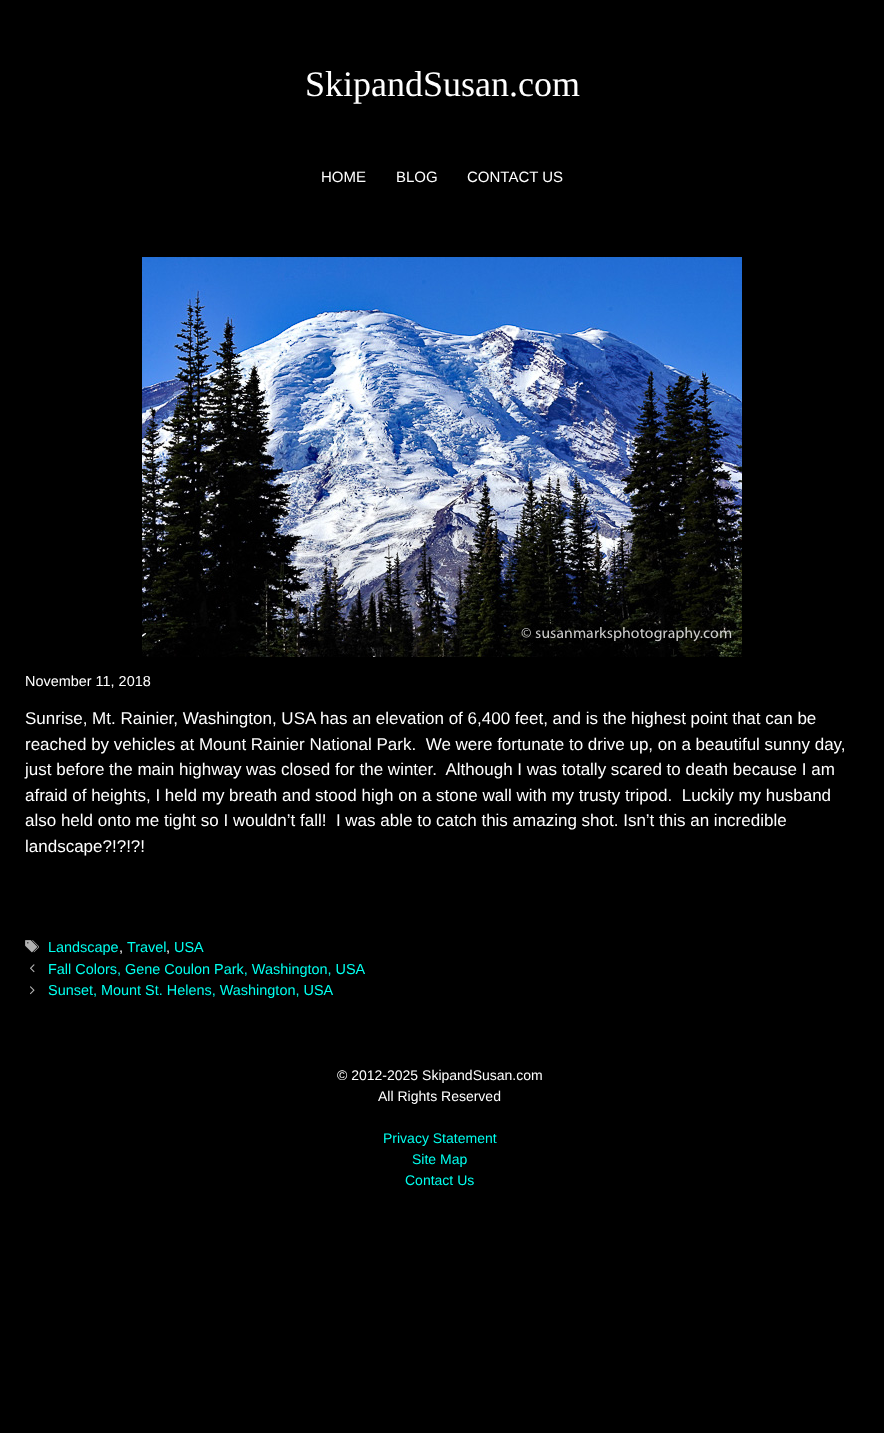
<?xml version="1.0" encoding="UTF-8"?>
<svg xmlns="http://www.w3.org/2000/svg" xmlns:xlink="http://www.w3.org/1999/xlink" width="884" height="1433">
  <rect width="100%" height="100%" fill="#000000" />
  <image x="142" y="257" width="600" height="400" xlink:href="image1.png" />
  <image x="25" y="940" width="14" height="13" xlink:href="image2.png" />
  <image x="30" y="964" width="5" height="9" xlink:href="image3.png" />
  <image x="30" y="986" width="5" height="9" xlink:href="image4.png" />
  <text x="305" y="96" style="font-family: Liberation Serif; font-size: 36px; fill: #ffffff">SkipandSusan.com</text>
  <text x="321" y="182" style="font-family: Liberation Sans; font-size: 15px; fill: #ffffff">HOME</text>
  <text x="396" y="182" style="font-family: Liberation Sans; font-size: 15px; fill: #ffffff">BLOG</text>
  <text x="467" y="182" style="font-family: Liberation Sans; font-size: 15px; fill: #ffffff">CONTACT US</text>
  <text x="25" y="686" style="font-family: Liberation Sans; font-size: 14.45px; fill: #ffffff">November 11, 2018</text>
  <text x="25" y="724" style="font-family: Liberation Sans; font-size: 17px; fill: #ffffff">Sunrise, Mt. Rainier, Washington, USA has an elevation of 6,400 feet, and is the highest point that can be</text>
  <text x="25" y="750" style="font-family: Liberation Sans; font-size: 17px; fill: #ffffff" xml:space="preserve">reached by vehicles at Mount Rainier National Park.  We were fortunate to drive up, on a beautiful sunny day,</text>
  <text x="25" y="775" style="font-family: Liberation Sans; font-size: 17px; fill: #ffffff" xml:space="preserve">just before the main highway was closed for the winter.  Although I was totally scared to death because I am</text>
  <text x="25" y="801" style="font-family: Liberation Sans; font-size: 17px; fill: #ffffff" xml:space="preserve">afraid of heights, I held my breath and stood high on a stone wall with my trusty tripod.  Luckily my husband</text>
  <text x="25" y="826" style="font-family: Liberation Sans; font-size: 17px; fill: #ffffff" xml:space="preserve">also held onto me tight so I wouldn’t fall!  I was able to catch this amazing shot. Isn’t this an incredible</text>
  <text x="25" y="852" style="font-family: Liberation Sans; font-size: 17px; fill: #ffffff">landscape?!?!?!</text>
  <text x="48" y="952" style="font-family: Liberation Sans; font-size: 14.45px; fill: #00ffee">Landscape</text>
  <text x="119" y="952" style="font-family: Liberation Sans; font-size: 14.45px; fill: #ffffff">,</text>
  <text x="127" y="952" style="font-family: Liberation Sans; font-size: 14.45px; fill: #00ffee">Travel</text>
  <text x="166" y="952" style="font-family: Liberation Sans; font-size: 14.45px; fill: #ffffff">,</text>
  <text x="174" y="952" style="font-family: Liberation Sans; font-size: 14.45px; fill: #00ffee">USA</text>
  <text x="48" y="974" style="font-family: Liberation Sans; font-size: 14.45px; fill: #00ffee">Fall Colors, Gene Coulon Park, Washington, USA</text>
  <text x="48" y="995" style="font-family: Liberation Sans; font-size: 14.45px; fill: #00ffee">Sunset, Mount St. Helens, Washington, USA</text>
  <text x="337" y="1080" style="font-family: Liberation Sans; font-size: 14px; fill: #ffffff">© 2012-2025 SkipandSusan.com</text>
  <text x="378" y="1101" style="font-family: Liberation Sans; font-size: 14px; fill: #ffffff">All Rights Reserved</text>
  <text x="383" y="1143" style="font-family: Liberation Sans; font-size: 14px; fill: #00ffee">Privacy Statement</text>
  <text x="412" y="1164" style="font-family: Liberation Sans; font-size: 14px; fill: #00ffee">Site Map</text>
  <text x="405" y="1185" style="font-family: Liberation Sans; font-size: 14px; fill: #00ffee">Contact Us</text>
</svg>
